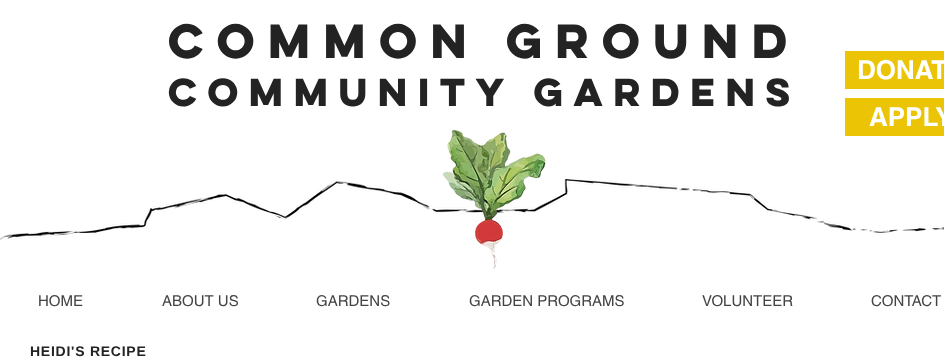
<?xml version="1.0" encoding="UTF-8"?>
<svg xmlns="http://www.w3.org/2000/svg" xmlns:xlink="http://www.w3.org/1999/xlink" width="944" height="364">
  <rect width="100%" height="100%" fill="#ffffff" />
  <rect x="845" y="51" width="99" height="38" fill="#ebc505" />
  <rect x="845" y="98" width="99" height="38" fill="#ebc505" />
  <image x="0" y="179" width="944" height="61" xlink:href="image2.png" />
  <image x="442" y="129" width="104" height="140" xlink:href="image1.png" />
  <text x="168" y="58" style="font-family: 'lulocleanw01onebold'; font-size: 43px; font-weight: bold; letter-spacing: 3.8px; fill: #232323">COMMON GROUND</text>
  <text x="168" y="106" style="font-family: 'lulocleanw01onebold'; font-size: 35px; font-weight: bold; letter-spacing: 2.75px; fill: #232323">COMMUNITY GARDENS</text>
  <text x="857" y="79" style="font-family: helvetica; font-size: 26px; font-weight: bold; fill: #ffffff">DONAT</text>
  <text x="869" y="126" style="font-family: helvetica; font-size: 26px; font-weight: bold; fill: #ffffff">APPLY</text>
  <text x="38" y="306" style="font-family: helvetica; font-size: 15px; fill: #444444">HOME</text>
  <text x="162" y="306" style="font-family: helvetica; font-size: 15px; fill: #444444">ABOUT US</text>
  <text x="316" y="306" style="font-family: helvetica; font-size: 15px; fill: #444444">GARDENS</text>
  <text x="469" y="306" style="font-family: helvetica; font-size: 15px; fill: #444444">GARDEN PROGRAMS</text>
  <text x="702" y="306" style="font-family: helvetica; font-size: 15px; fill: #444444">VOLUNTEER</text>
  <text x="871" y="306" style="font-family: helvetica; font-size: 15px; fill: #444444">CONTACT</text>
  <text x="30" y="356" style="font-family: Liberation Sans; font-size: 14px; font-weight: bold; letter-spacing: 0.75px; fill: #232323">HEIDI'S RECIPE</text>
</svg>
